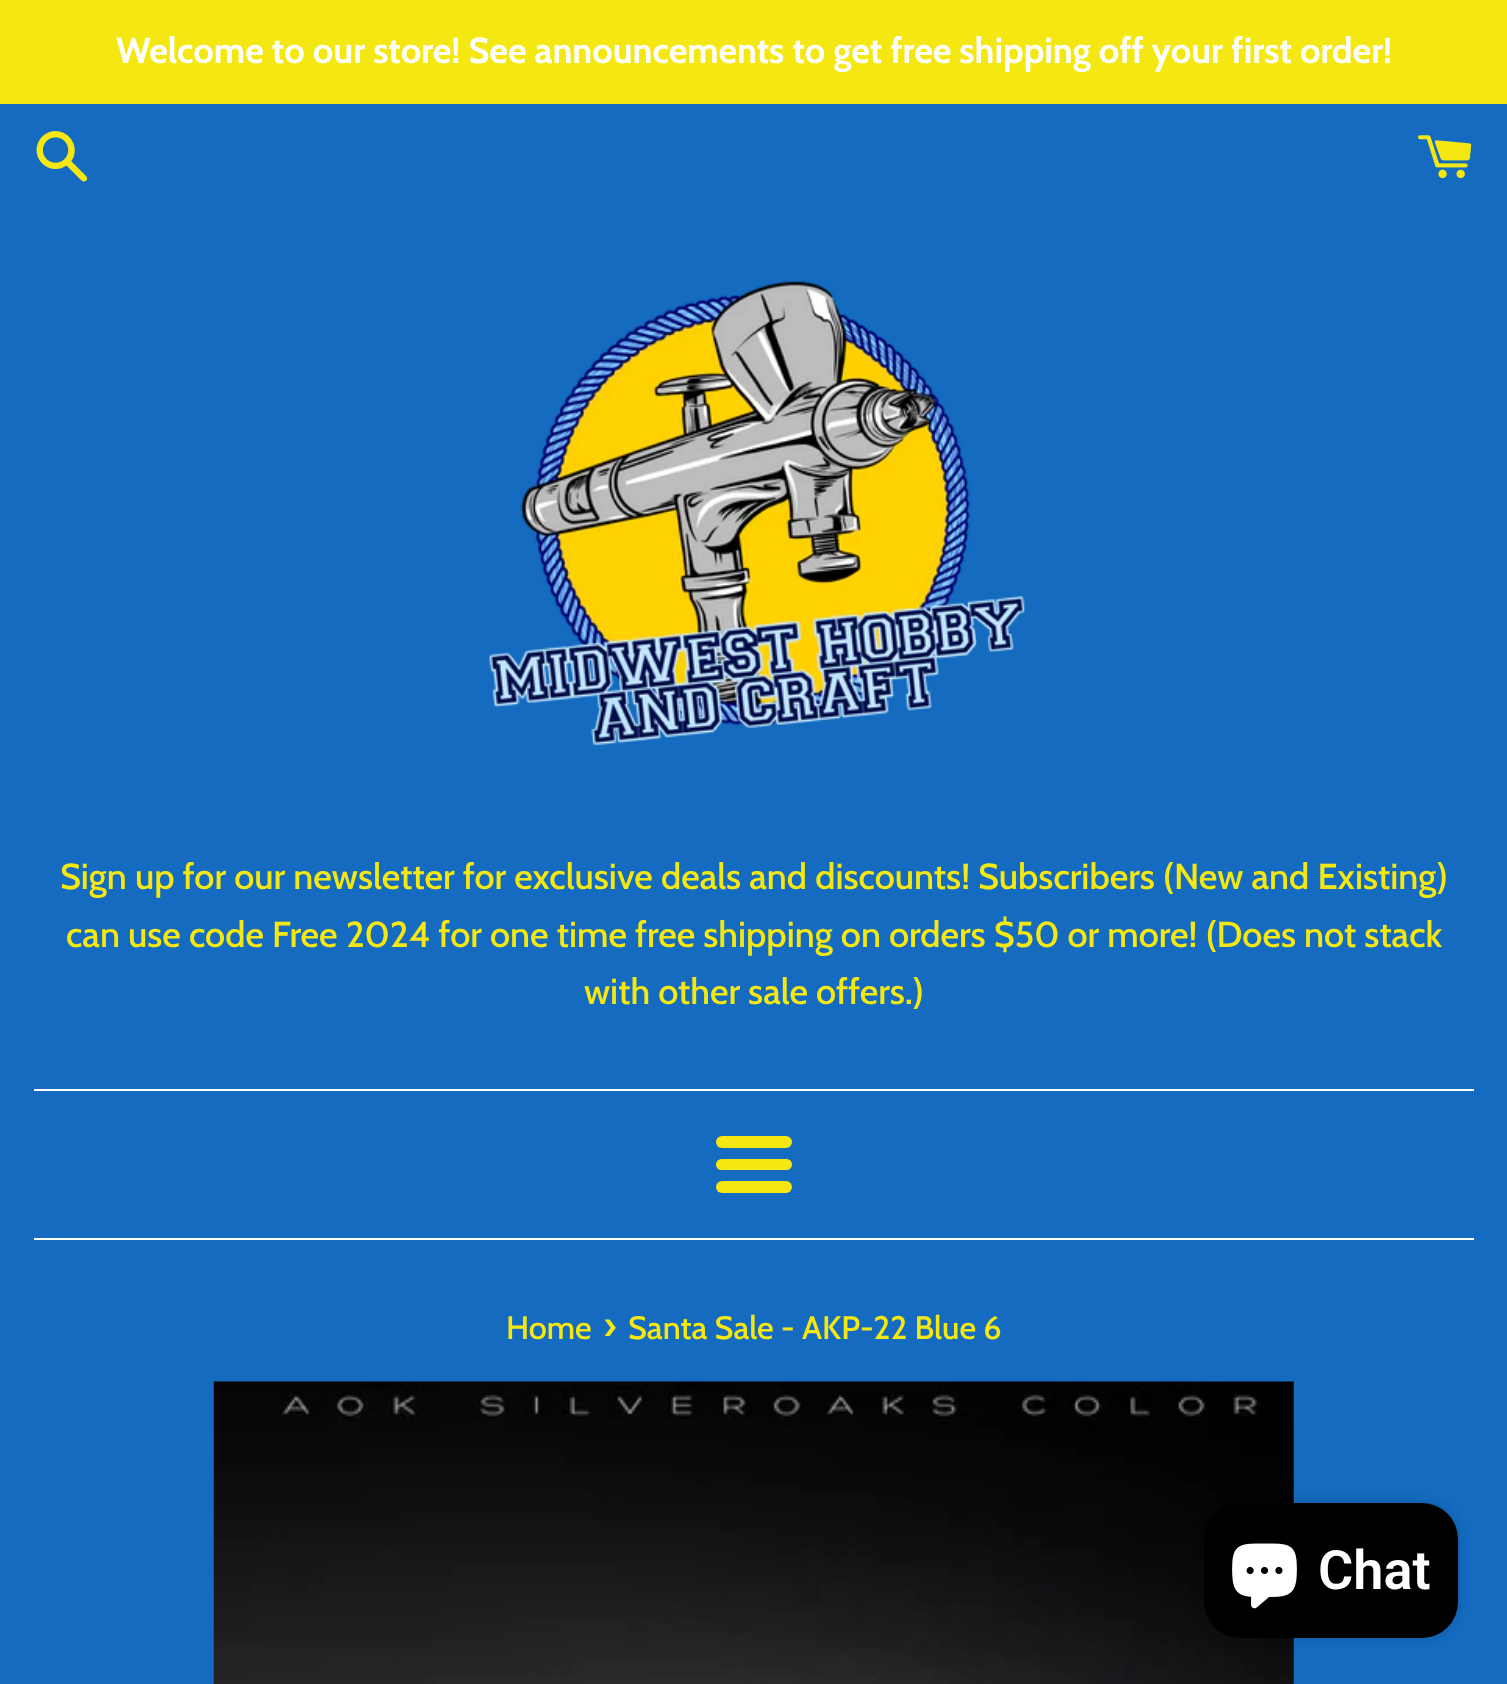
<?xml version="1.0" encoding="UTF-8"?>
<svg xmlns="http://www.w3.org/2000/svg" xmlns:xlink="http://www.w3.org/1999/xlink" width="1507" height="1684">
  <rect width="100%" height="100%" fill="#146bbf" />
  <rect width="1507" height="104" fill="#f5e812" />
  <image x="36" y="131" width="52" height="51" xlink:href="image1.png" />
  <image x="1418" y="135" width="54" height="44" xlink:href="image2.png" />
  <image x="489" y="281" width="537" height="465" xlink:href="image3.png" />
  <rect x="34" y="1089" width="1440" height="2" fill="#ffffff" />
  <rect x="716" y="1136" width="76" height="12" rx="6" fill="#f5e812" />
  <rect x="716" y="1159" width="76" height="11" rx="5.5" fill="#f5e812" />
  <rect x="716" y="1181" width="76" height="12" rx="6" fill="#f5e812" />
  <rect x="34" y="1238" width="1440" height="2" fill="#ffffff" />
  <image x="213" y="1381" width="1081" height="303" xlink:href="image4.png" />
  <rect x="1204" y="1503" width="254" height="135" rx="36" fill="#000000" fill-opacity="0.15" filter="blur(5.5px)" />
  <rect x="1204" y="1503" width="254" height="135" rx="36" fill="#000000" />
  <image x="1232" y="1543" width="65" height="66" xlink:href="image5.png" />
  <text x="116" y="63" style="font-family: Cabin; font-size: 36px; font-weight: bold; fill: #ffffff">Welcome to our store! See announcements to get free shipping off your first order!</text>
  <text x="60" y="889" style="font-family: Cabin; font-size: 36px; font-weight: 500; fill: #f5e812">Sign up for our newsletter for exclusive deals and discounts! Subscribers (New and Existing)</text>
  <text x="66" y="947" style="font-family: Cabin; font-size: 36px; font-weight: 500; fill: #f5e812">can use code Free 2024 for one time free shipping on orders $50 or more! (Does not stack</text>
  <text x="584" y="1004" style="font-family: Cabin; font-size: 36px; font-weight: 500; fill: #f5e812">with other sale offers.)</text>
  <text x="506" y="1339" style="font-family: Cabin; font-size: 32.4px; font-weight: 500; fill: #f5e812">Home</text>
  <text x="603" y="1339" style="font-family: Cabin; font-size: 40px; font-weight: 500; fill: #f5e812">›</text>
  <text x="628" y="1339" style="font-family: Cabin; font-size: 32.4px; font-weight: 500; fill: #f5e812">Santa Sale - AKP-22 Blue 6</text>
  <text x="1318" y="1589" style="font-family: Roboto; font-size: 54px; font-weight: 600; fill: #ffffff">Chat</text>
</svg>
